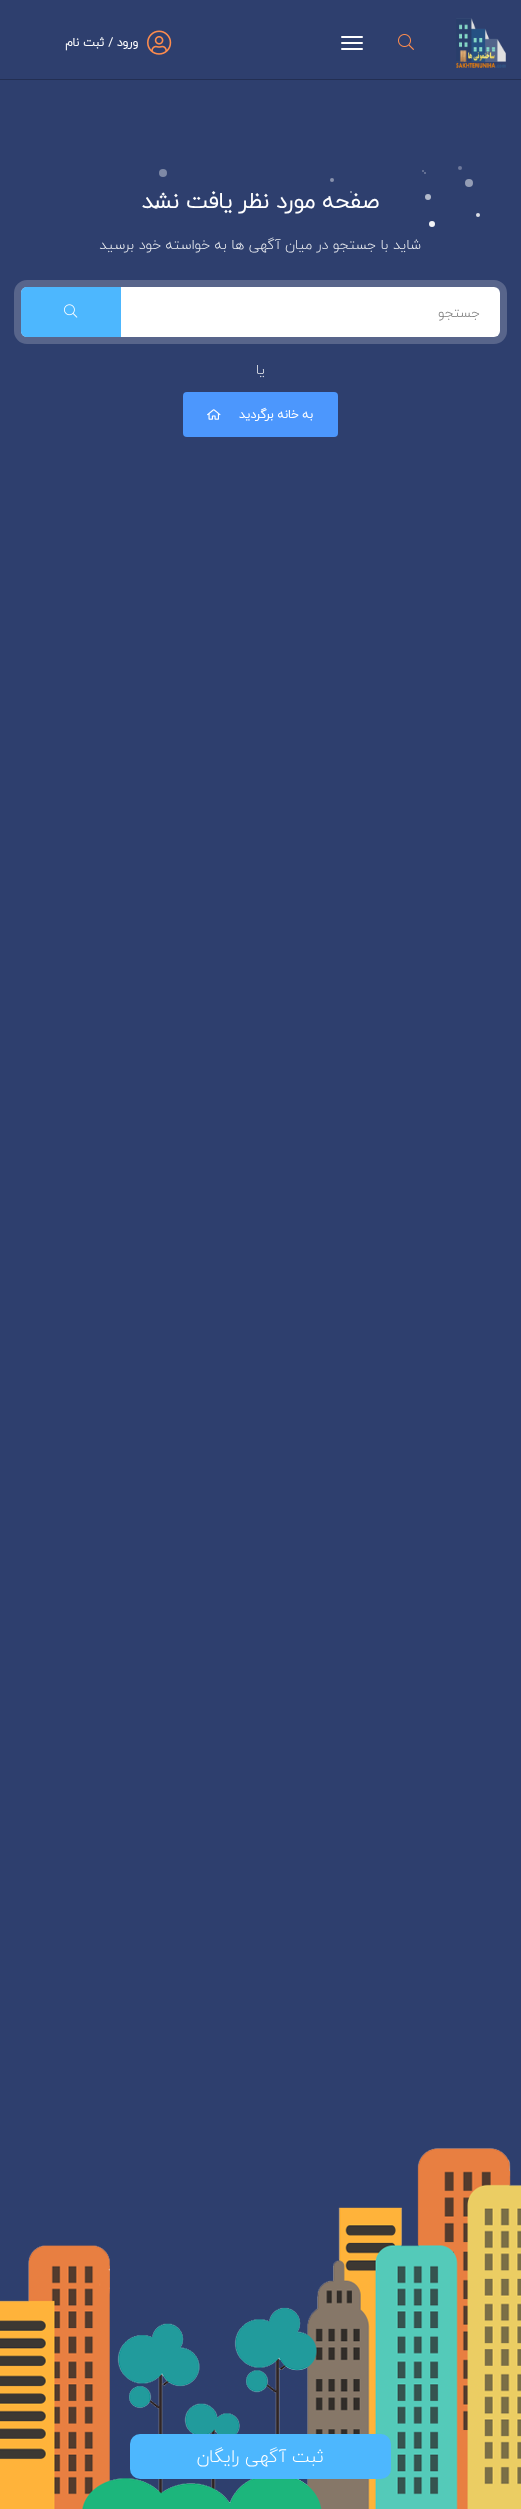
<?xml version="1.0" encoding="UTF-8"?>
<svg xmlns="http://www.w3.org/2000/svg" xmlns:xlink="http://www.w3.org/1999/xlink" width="521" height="2509">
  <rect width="100%" height="100%" fill="#2e3f6e" />
  <rect y="79" width="521" height="1" fill="#232f53" />
  <image x="456" y="18" width="50" height="50" xlink:href="image1.png" />
  <image x="398" y="34" width="16" height="16" xlink:href="image2.png" />
  <rect x="341" y="36" width="22" height="2" rx="1" fill="#ffffff" />
  <rect x="341" y="42" width="22" height="2" rx="1" fill="#ffffff" />
  <rect x="341" y="48" width="22" height="2" rx="1" fill="#ffffff" />
  <image x="147" y="30" width="25" height="25" xlink:href="image3.png" />
  <image x="0" y="2148" width="521" height="361" xlink:href="image4.png" />
  <circle cx="460" cy="168" r="2" fill="#6e799a" />
  <circle cx="423" cy="171" r="1" fill="#717c9c" />
  <circle cx="163" cy="173" r="4" fill="#7e89a6" />
  <circle cx="425" cy="173" r="1" fill="#7681a0" />
  <circle cx="469" cy="183" r="4" fill="#949db5" />
  <circle cx="332" cy="180" r="2" fill="#8892ac" />
  <circle cx="428" cy="197" r="3" fill="#b3bacb" />
  <circle cx="478" cy="215" r="2" fill="#dbdee6" />
  <circle cx="432" cy="224" r="3" fill="#f3f4f7" />
  <rect x="17.5" y="283.5" width="486" height="57" rx="9.5" fill="none" stroke="#58658b" stroke-width="7" />
  <rect x="21" y="287" width="479" height="50" rx="6" fill="#ffffff" />
  <path d="M 27 287 h 94 v 50 h -94 c -3.5 0 -6 -2.5 -6 -6 v -38 c 0 -3.5 2.5 -6 6 -6 z" fill="#4db7fe" />
  <image x="64" y="304" width="14" height="14" xlink:href="image5.png" />
  <rect x="183" y="392" width="155" height="45" rx="4" fill="#4c97fd" />
  <image x="207" y="409" width="14" height="11" xlink:href="image6.png" />
  <rect x="130" y="2434" width="261" height="45" rx="10" fill="#4db7fe" />
  <text x="138" y="46" style="font-family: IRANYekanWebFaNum; font-size: 12px; font-weight: bold; direction: rtl; fill: #ffffff">ورود / ثبت نام</text>
  <text x="379" y="208" style="font-family: IRANYekanWebFaNum; font-size: 22px; font-weight: bold; direction: rtl; fill: #ffffff">صفحه مورد نظر یافت نشد</text>
  <circle cx="351" cy="192" r="1" fill="#a2aabf" />
  <circle cx="156" cy="207" r="2" fill="#ffffff" fill-opacity="0.74" />
  <text x="421" y="249" style="font-family: IRANYekanWebFaNum; font-size: 14px; font-weight: 300; direction: rtl; fill: #eceef2">شاید با جستجو در میان آگهی ها به خواسته خود برسید</text>
  <text x="480" y="317" style="font-family: IRANYekanWebFaNum; font-size: 13.5px; font-weight: 300; direction: rtl; fill: #757575">جستجو</text>
  <text x="265" y="374" style="font-family: IRANYekanWebFaNum; font-size: 14px; font-weight: 300; direction: rtl; fill: #eceef2">یا</text>
  <text x="313" y="418" style="font-family: IRANYekanWebFaNum; font-size: 12px; font-weight: bold; direction: rtl; fill: #ffffff">به خانه برگردید</text>
  <text x="324" y="2462" style="font-family: IRANYekanWebFaNum; font-size: 18px; font-weight: 300; direction: rtl; fill: #ffffff">ثبت آگهی رایگان</text>
</svg>
